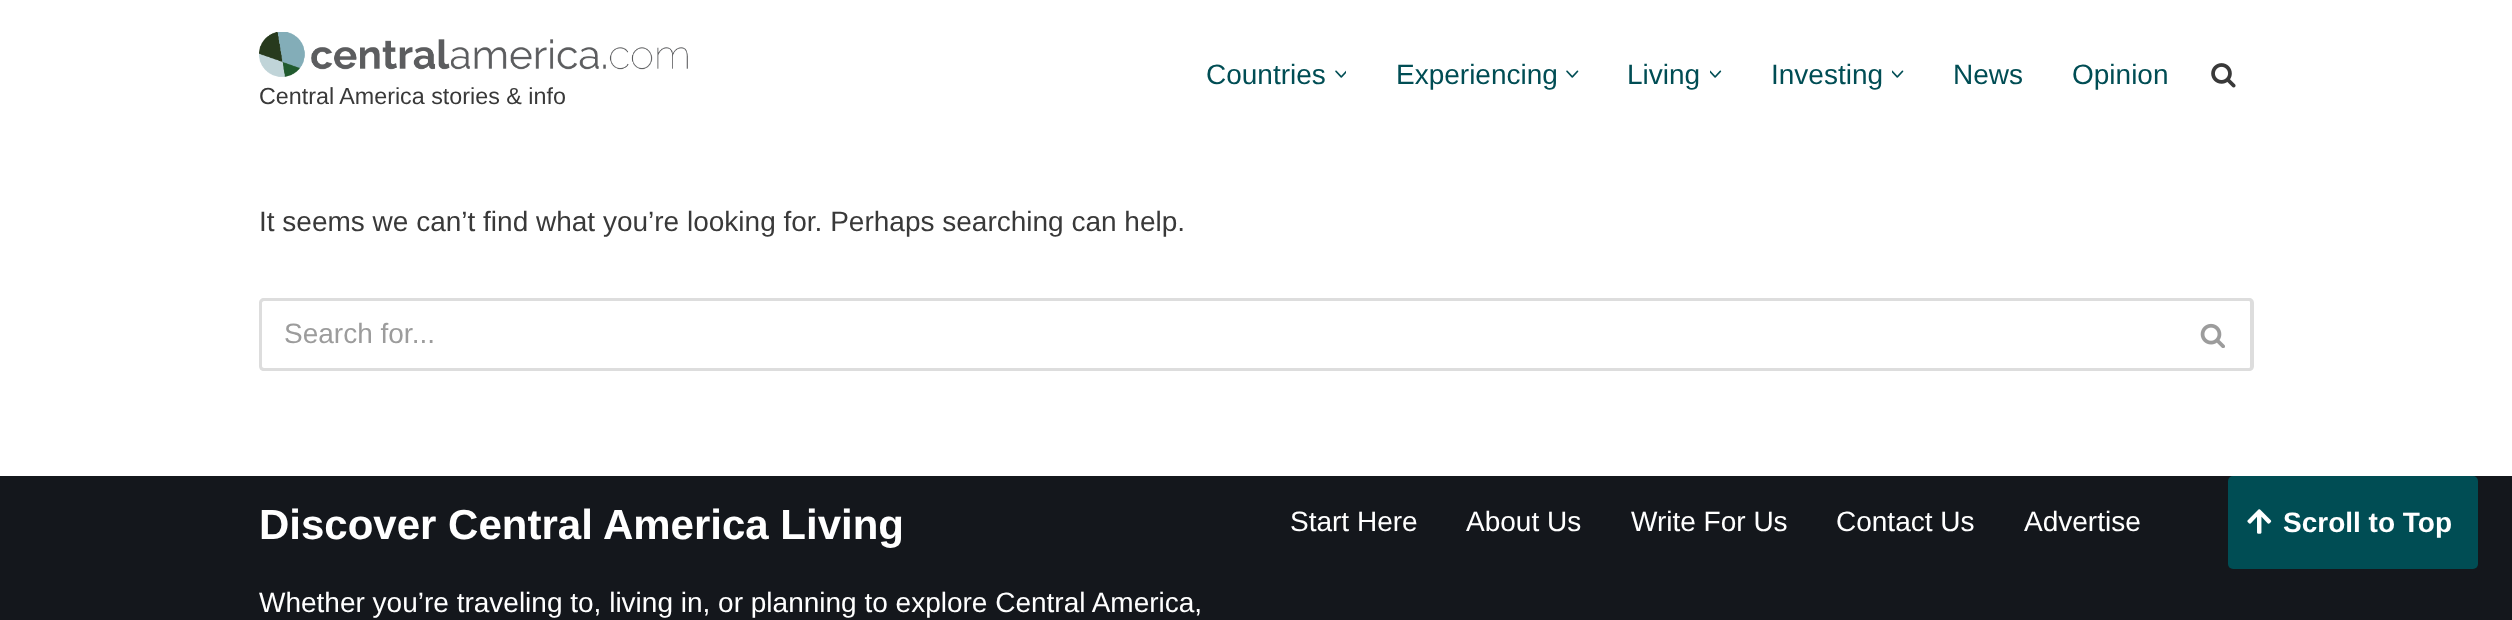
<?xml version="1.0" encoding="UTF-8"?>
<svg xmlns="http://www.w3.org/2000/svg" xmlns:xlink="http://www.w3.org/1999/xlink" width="2512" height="620">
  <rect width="100%" height="100%" fill="#ffffff" />
  <image x="1335" y="70" width="11" height="8" xlink:href="image1.png" />
  <image x="1566" y="70" width="13" height="8" xlink:href="image2.png" />
  <image x="1710" y="70" width="12" height="8" xlink:href="image3.png" />
  <image x="1892" y="70" width="12" height="8" xlink:href="image4.png" />
  <image x="2211" y="63" width="25" height="25" xlink:href="image5.png" />
  <image x="259" y="32" width="429" height="45" xlink:href="image6.png" />
  <path d="M 264 298 h 1911 v 73 h -1911 c -3 0 -5 -2 -5 -5 v -63 c 0 -3 2 -5 5 -5 z m 0 3 h 1911 v 67 h -1911 c -1 0 -2 -1 -2 -2 v -63 c 0 -1 1 -2 2 -2 z" fill="#dddddd" fill-rule="evenodd" />
  <path d="M 2175 298 h 74 c 3 0 5 2 5 5 v 63 c 0 3 -2 5 -5 5 h -74 z m 0 3 h 74 c 1 0 1 1 1 2 v 63 c 0 1 0 2 -1 2 h -74 z" fill="#dddddd" fill-rule="evenodd" />
  <image x="2200" y="323" width="25" height="25" xlink:href="image7.png" />
  <rect y="476" width="2512" height="144" fill="#14171c" />
  <rect x="2228" y="476" width="250" height="93" rx="5" fill="#004d54" />
  <image x="2247" y="509" width="25" height="25" xlink:href="image8.png" />
  <text x="1206" y="84" style="font-family: Liberation Sans; font-size: 28px; fill: #004d54">Countries</text>
  <text x="1396" y="84" style="font-family: Liberation Sans; font-size: 28px; fill: #004d54">Experiencing</text>
  <text x="1627" y="84" style="font-family: Liberation Sans; font-size: 28px; fill: #004d54">Living</text>
  <text x="1771" y="84" style="font-family: Liberation Sans; font-size: 28px; fill: #004d54">Investing</text>
  <text x="1953" y="84" style="font-family: Liberation Sans; font-size: 28px; fill: #004d54">News</text>
  <text x="2072" y="84" style="font-family: Liberation Sans; font-size: 28px; fill: #004d54">Opinion</text>
  <text x="259" y="104" style="font-family: Liberation Sans; font-size: 23.3px; fill: #393939">Central America stories &amp; info</text>
  <text x="259" y="231" style="font-family: Liberation Sans; font-size: 28px; fill: #393939">It seems we can’t find what you’re looking for. Perhaps searching can help.</text>
  <text x="284" y="343" style="font-family: Liberation Sans; font-size: 28px; fill: #9c9c9c">Search for...</text>
  <text x="259" y="539" style="font-family: Liberation Sans; font-size: 42px; font-weight: bold; fill: #ffffff">Discover Central America Living</text>
  <text x="259" y="612" style="font-family: Liberation Sans; font-size: 28px; fill: #ffffff">Whether you’re traveling to, living in, or planning to explore Central America,</text>
  <text x="1290" y="531" style="font-family: Liberation Sans; font-size: 28px; fill: #ffffff">Start Here</text>
  <text x="1466" y="531" style="font-family: Liberation Sans; font-size: 28px; fill: #ffffff">About Us</text>
  <text x="1631" y="531" style="font-family: Liberation Sans; font-size: 28px; fill: #ffffff">Write For Us</text>
  <text x="1836" y="531" style="font-family: Liberation Sans; font-size: 28px; fill: #ffffff">Contact Us</text>
  <text x="2024" y="531" style="font-family: Liberation Sans; font-size: 28px; fill: #ffffff">Advertise</text>
  <text x="2283" y="532" style="font-family: Liberation Sans; font-size: 28px; font-weight: bold; fill: #ffffff">Scroll to Top</text>
</svg>
